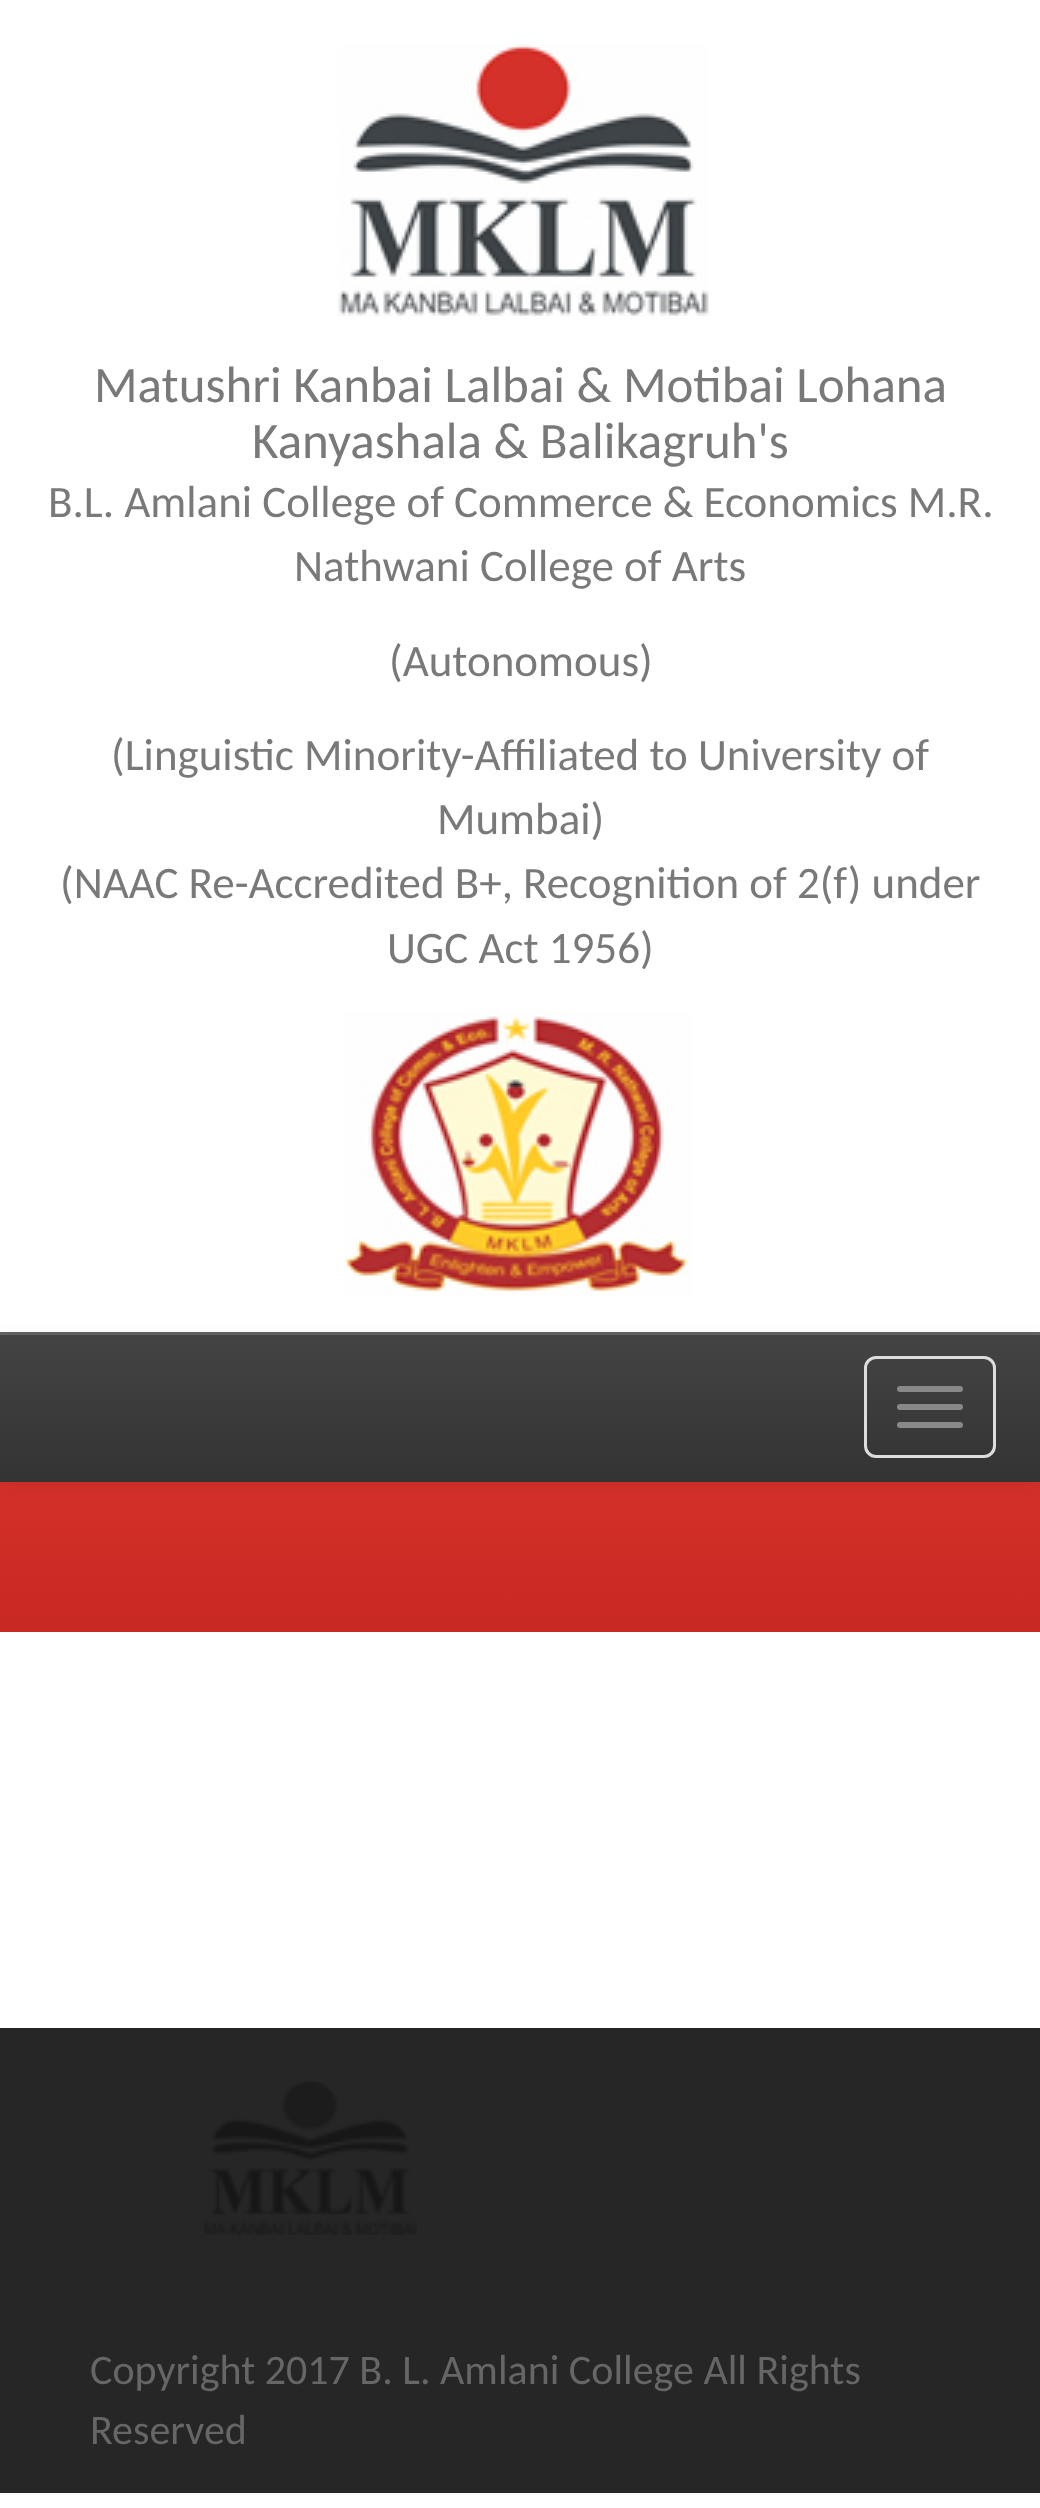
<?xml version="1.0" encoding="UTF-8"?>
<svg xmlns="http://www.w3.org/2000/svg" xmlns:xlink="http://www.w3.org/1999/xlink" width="1040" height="2508">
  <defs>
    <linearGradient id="g1" gradientUnits="userSpaceOnUse" x1="521" y1="1482" x2="521" y2="1632"><stop offset="0" stop-color="#d4312a" /><stop offset="1" stop-color="#c72821" /></linearGradient>
    <linearGradient id="g2" gradientUnits="userSpaceOnUse" x1="521" y1="1332" x2="521" y2="1482"><stop offset="0" stop-color="#444444" /><stop offset="1" stop-color="#333333" /></linearGradient>
  </defs>
  <rect width="100%" height="100%" fill="#ffffff" />
  <image x="338" y="44" width="371" height="272" xlink:href="image1.png" />
  <image x="344" y="1011" width="348" height="285" xlink:href="image2.png" />
  <rect y="1482" width="1040" height="150" fill="url(#g1)" />
  <rect y="1335" width="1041" height="150" fill="#000000" fill-opacity="0.07" filter="blur(7.5px)" />
  <rect y="1335" width="1040" height="147" fill="url(#g2)" />
  <rect y="1332" width="1040" height="3" fill="#606060" />
  <rect x="865.5" y="1357.5" width="129" height="99" rx="10.5" fill="none" stroke="#dddddd" stroke-width="3" />
  <rect x="897" y="1386" width="66" height="6" rx="3" fill="#888888" />
  <rect x="897" y="1404" width="66" height="6" rx="3" fill="#888888" />
  <rect x="897" y="1422" width="66" height="6" rx="3" fill="#888888" />
  <rect y="2028" width="1040" height="465" fill="#262626" />
  <image x="204" y="2081" width="213" height="154" xlink:href="image3.png" />
  <text x="94" y="402" style="font-family: Carlito; font-size: 51px; fill: #797979">Matushri Kanbai Lalbai &amp; Motibai Lohana</text>
  <text x="252" y="458" style="font-family: Carlito; font-size: 51px; fill: #797979">Kanyashala &amp; Balikagruh's</text>
  <text x="48" y="517" style="font-family: Carlito; font-size: 45px; fill: #797979">B.L. Amlani College of Commerce &amp; Economics M.R.</text>
  <text x="294" y="581" style="font-family: Carlito; font-size: 45px; fill: #797979">Nathwani College of Arts</text>
  <text x="389" y="676" style="font-family: Carlito; font-size: 45px; fill: #797979">(Autonomous)</text>
  <text x="111" y="770" style="font-family: Carlito; font-size: 45px; fill: #797979">(Linguistic Minority-Affiliated to University of</text>
  <text x="437" y="834" style="font-family: Carlito; font-size: 45px; fill: #797979">Mumbai)</text>
  <text x="60" y="898" style="font-family: Carlito; font-size: 45px; fill: #797979">(NAAC Re-Accredited B+, Recognition of 2(f) under</text>
  <text x="387" y="963" style="font-family: Carlito; font-size: 45px; fill: #797979">UGC Act 1956)</text>
  <text x="90" y="2384" style="font-family: Carlito; font-size: 42px; fill: #666666">Copyright 2017 B. L. Amlani College All Rights</text>
  <text x="90" y="2444" style="font-family: Carlito; font-size: 42px; fill: #666666">Reserved</text>
</svg>
